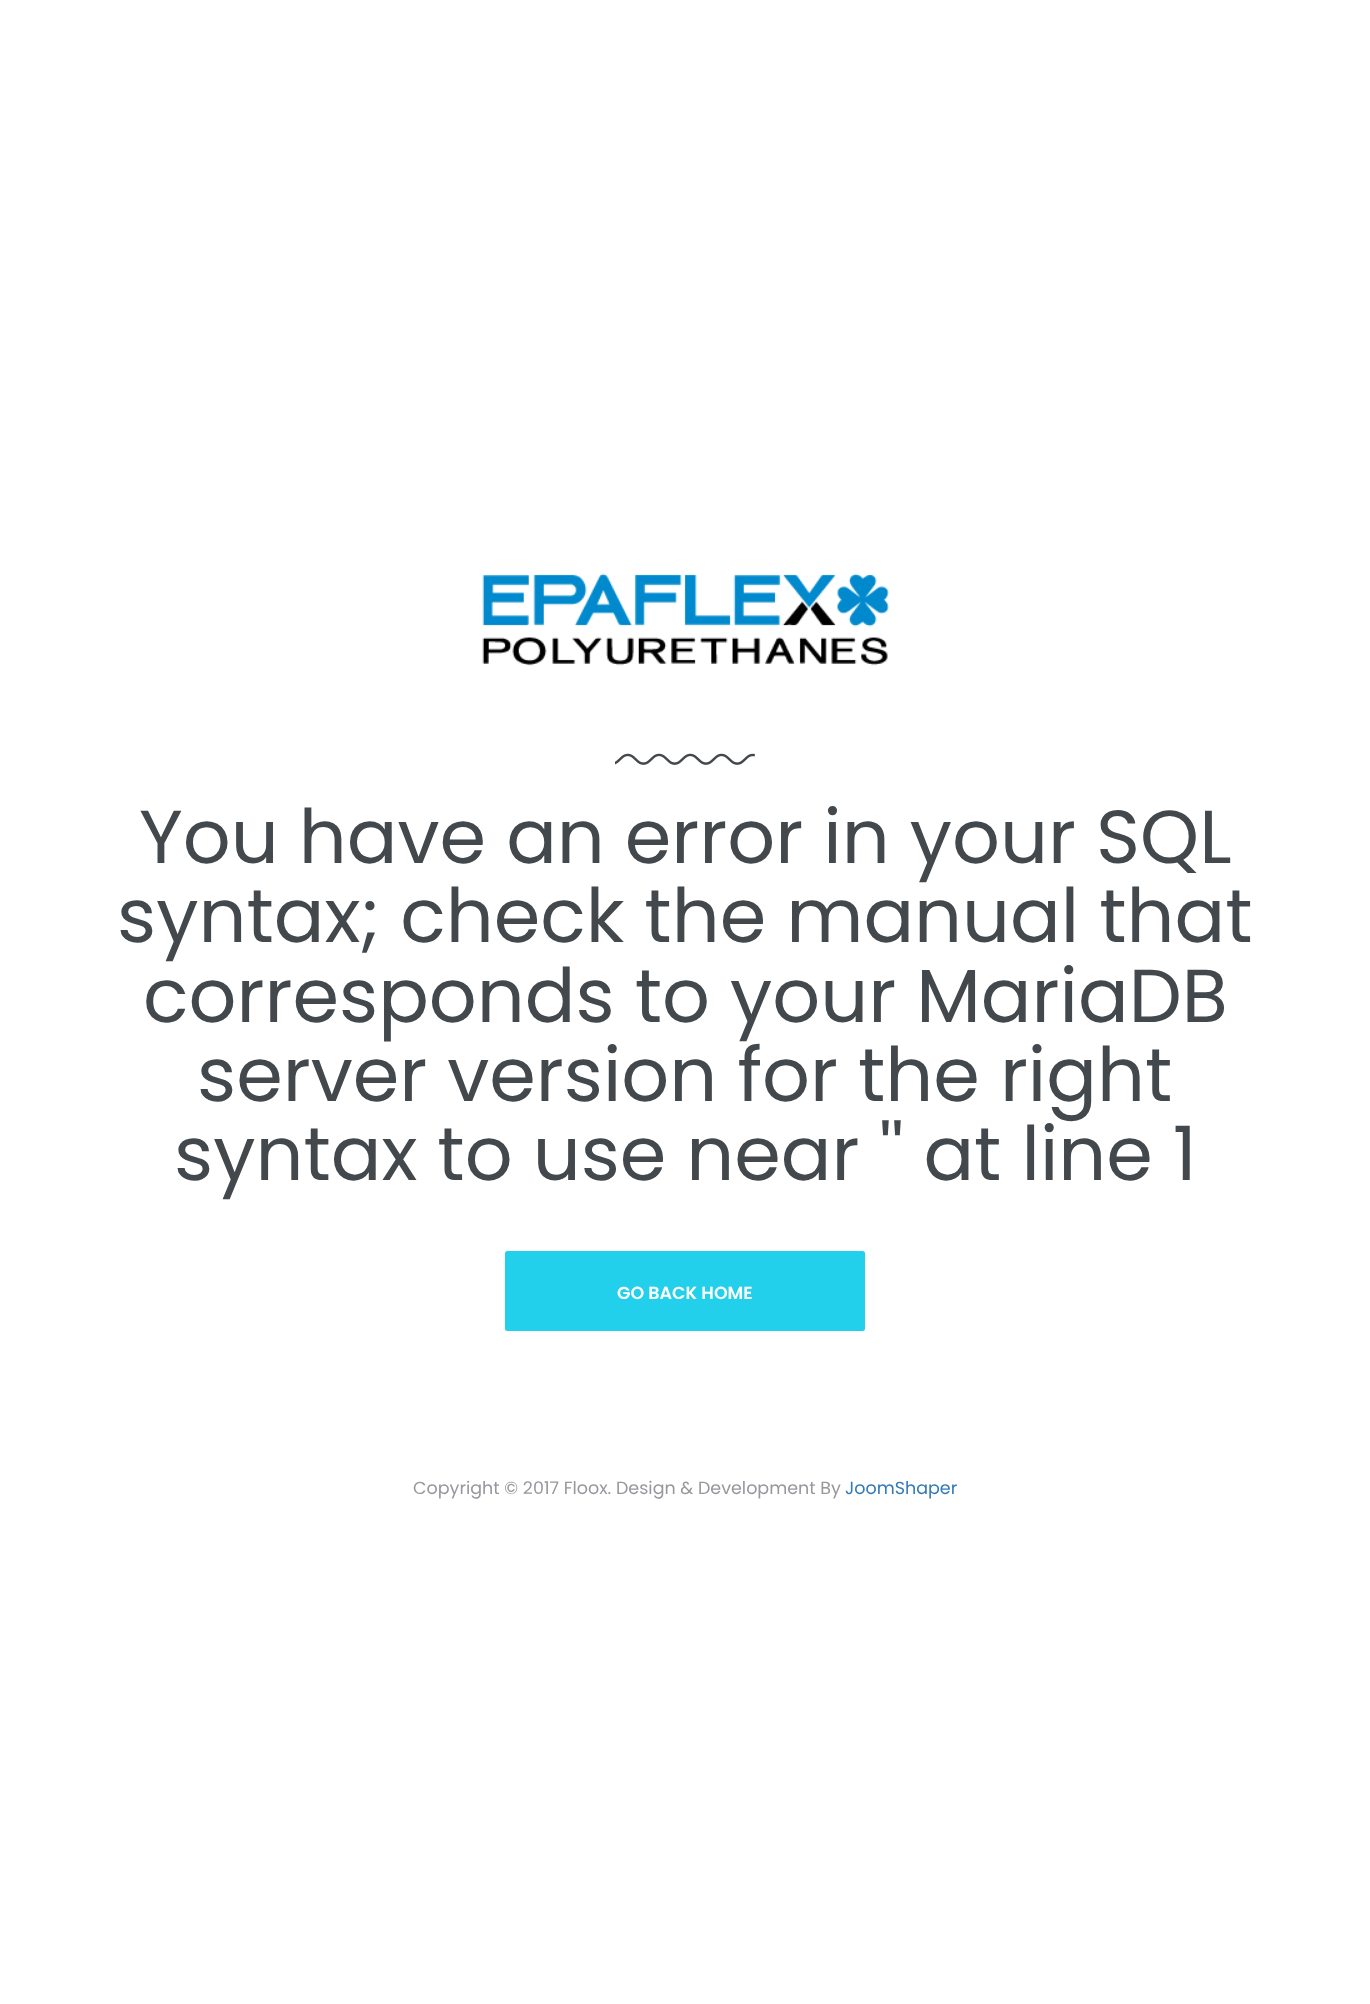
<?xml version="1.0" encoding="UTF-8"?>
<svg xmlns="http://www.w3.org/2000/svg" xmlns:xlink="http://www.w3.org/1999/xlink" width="1370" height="2004">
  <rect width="100%" height="100%" fill="#ffffff" />
  <image x="482" y="573" width="407" height="93" xlink:href="image1.png" />
  <image x="615" y="753" width="140" height="12" xlink:href="image2.png" />
  <rect x="505" y="1251" width="360" height="80" rx="2.5" fill="#23d0ec" />
  <text x="139" y="863" style="font-family: Poppins; font-size: 75px; fill: #43484d">You have an error in your SQL</text>
  <text x="117" y="942" style="font-family: Poppins; font-size: 75px; fill: #43484d">syntax; check the manual that</text>
  <text x="143" y="1022" style="font-family: Poppins; font-size: 75px; fill: #43484d">corresponds to your MariaDB</text>
  <text x="197" y="1101" style="font-family: Poppins; font-size: 75px; fill: #43484d">server version for the right</text>
  <text x="174" y="1180" style="font-family: Poppins; font-size: 75px; fill: #43484d">syntax to use near '' at line 1</text>
  <text x="617" y="1299" style="font-family: Poppins; font-size: 17.5px; font-weight: 600; fill: #ffffff">GO BACK HOME</text>
  <text x="413" y="1494" style="font-family: Poppins; font-size: 17.5px; fill: #96989d">Copyright © 2017 Floox. Design &amp; Development By</text>
  <text x="845" y="1494" style="font-family: Poppins; font-size: 17.5px; fill: #337ab7">JoomShaper</text>
</svg>
